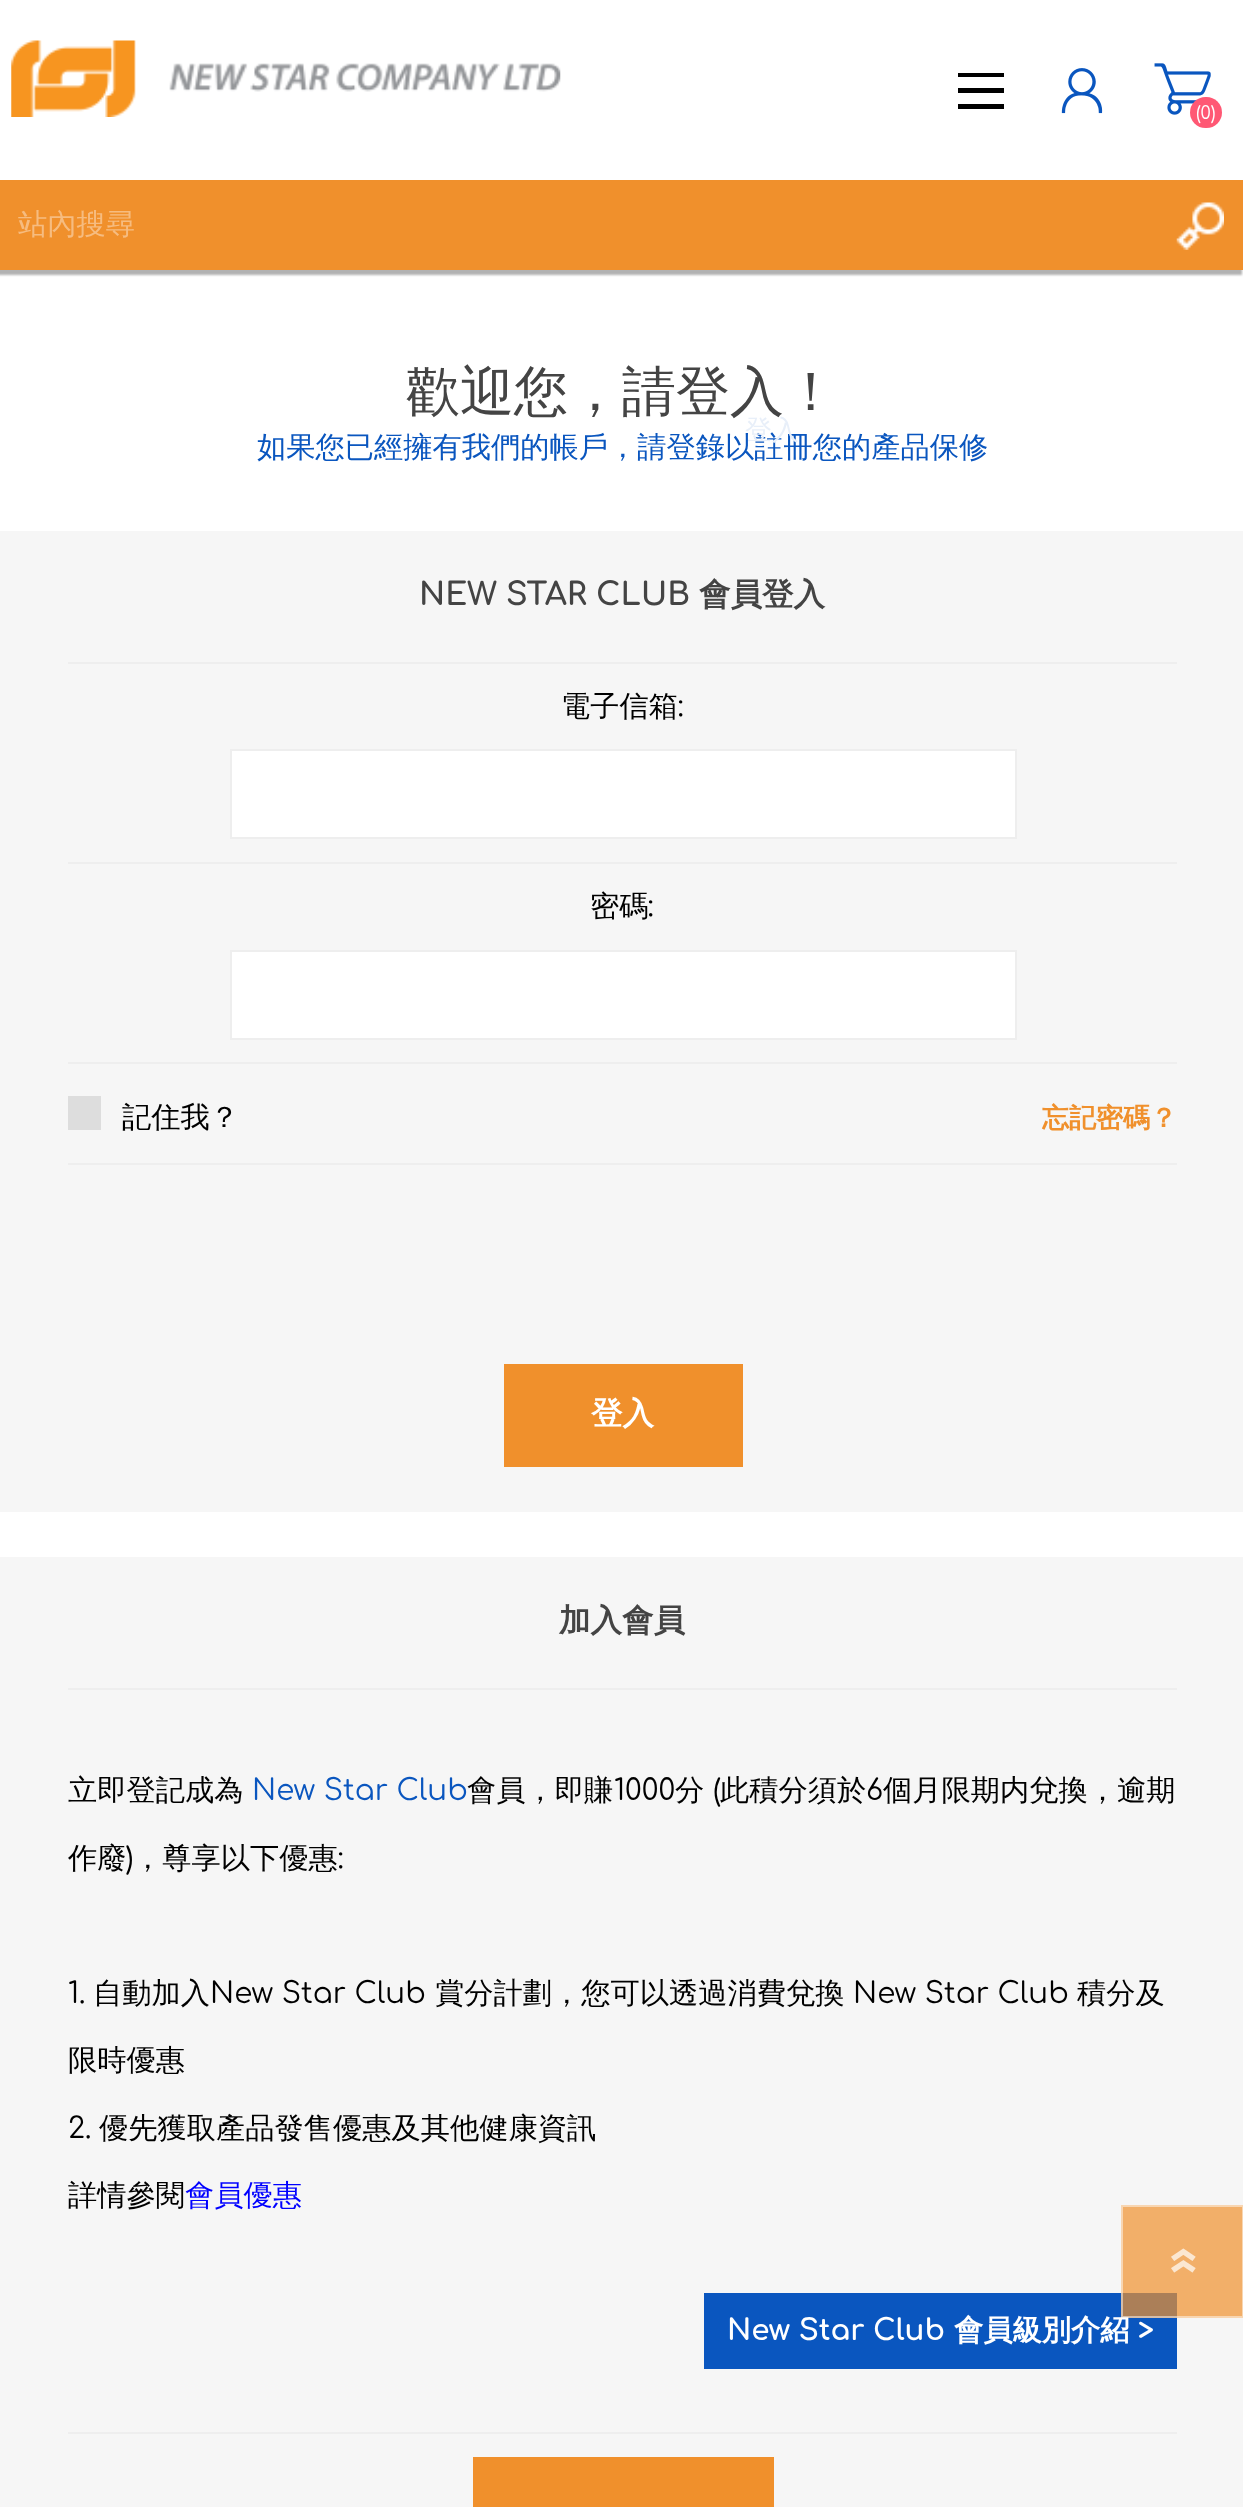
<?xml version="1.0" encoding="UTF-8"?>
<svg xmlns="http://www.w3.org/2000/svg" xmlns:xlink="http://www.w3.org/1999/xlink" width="1243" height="2507">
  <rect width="100%" height="100%" fill="#ffffff" />
  <image x="11" y="40" width="550" height="77" xlink:href="image1.png" />
  <rect x="-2" y="185" width="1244" height="90" fill="#000000" fill-opacity="0.3" filter="blur(1px)" />
  <rect y="180" width="1243" height="90" fill="#f0902c" />
  <image x="1176" y="202" width="48" height="48" xlink:href="image2.png" />
  <path d="M 958 73 v 4 h 46 v -4 z m 0 20 h 46 v -5 h -46 z m 0 16 h 46 v -5 h -46 z" fill="#000000" />
  <image x="1154" y="63" width="57" height="52" xlink:href="image3.png" />
  <rect x="1190" y="97" width="32" height="31" rx="15.5" fill="#ff5874" />
  <image x="1061" y="68" width="42" height="46" xlink:href="image4.png" />
  <rect y="531" width="1243" height="981" fill="#f6f6f6" />
  <rect x="68" y="662" width="1109" height="2" fill="#eeeeee" />
  <rect x="68" y="862" width="1109" height="2" fill="#eeeeee" />
  <rect x="231" y="750" width="785" height="88" fill="#ffffff" stroke="#eeeeee" stroke-width="2" />
  <rect x="68" y="1062" width="1109" height="2" fill="#eeeeee" />
  <rect x="231" y="951" width="785" height="88" fill="#ffffff" stroke="#eeeeee" stroke-width="2" />
  <rect x="68" y="1163" width="1109" height="2" fill="#eeeeee" />
  <rect x="68" y="1096" width="33" height="34" fill="#dddddd" />
  <rect x="504" y="1364" width="239" height="103" fill="#f0902c" />
  <rect y="1557" width="1243" height="950" fill="#f6f6f6" />
  <rect x="1121" y="2205" width="122" height="113" fill="#f2af69" />
  <rect x="68" y="1688" width="1109" height="2" fill="#eeeeee" />
  <rect x="68" y="2432" width="1109" height="2" fill="#eeeeee" />
  <rect x="704" y="2293" width="473" height="76" fill="#0a56bf" />
  <rect x="1121" y="2293" width="56" height="25" fill="#ab7f58" />
  <rect x="473" y="2457" width="301" height="50" fill="#f0902c" />
  <text x="18" y="234" style="font-family: WenQuanYi Zen Hei; font-size: 29.25px; font-weight: 500; fill: #f6bc80">站內搜尋</text>
  <text x="1196" y="119" style="font-family: Comfortaa; font-size: 18px; fill: #ffffff">(0)</text>
  <text x="406" y="410" style="font-family: WenQuanYi Zen Hei; font-size: 54px; font-weight: 500; fill: #444444">歡迎您，請登入！</text>
  <text x="257" y="457" style="font-family: WenQuanYi Zen Hei; font-size: 29.25px; font-weight: 500; fill: #0a56bf">如果您已經擁有我們的帳戶，請登錄以註冊您的產品保修</text>
  <text x="745" y="439" style="font-family: WenQuanYi Zen Hei; font-size: 27px; font-weight: 500; fill: #e8eff9">登入</text>
  <text x="419" y="605" style="font-family: Comfortaa; font-size: 31.5px; font-weight: bold; fill: #444444">NEW STAR CLUB</text>
  <text x="699" y="605" style="font-family: WenQuanYi Zen Hei; font-size: 31.5px; font-weight: bold; fill: #444444">會員登入</text>
  <text x="561" y="716" style="font-family: WenQuanYi Zen Hei; font-size: 29.25px; font-weight: 500; fill: #000000">電子信箱</text>
  <text x="678" y="716" style="font-family: Comfortaa; font-size: 29.25px; fill: #000000">:</text>
  <text x="590" y="916" style="font-family: WenQuanYi Zen Hei; font-size: 29.25px; font-weight: 500; fill: #000000">密碼</text>
  <text x="648" y="916" style="font-family: Comfortaa; font-size: 29.25px; fill: #000000">:</text>
  <text x="122" y="1127" style="font-family: WenQuanYi Zen Hei; font-size: 29.25px; font-weight: 500; fill: #000000">記住我？</text>
  <text x="1042" y="1127" style="font-family: WenQuanYi Zen Hei; font-size: 27px; font-weight: bold; fill: #f0902c">忘記密碼？</text>
  <text x="591" y="1424" style="font-family: WenQuanYi Zen Hei; font-size: 31.5px; font-weight: bold; fill: #ffffff">登入</text>
  <text x="559" y="1631" style="font-family: WenQuanYi Zen Hei; font-size: 31.5px; font-weight: bold; fill: #444444">加入會員</text>
  <text x="68" y="1800" style="font-family: WenQuanYi Zen Hei; font-size: 29.25px; font-weight: 500; fill: #000000">立即登記成為</text>
  <text x="252" y="1800" style="font-family: Comfortaa; font-size: 29.25px; fill: #0a56bf">New Star Club</text>
  <text x="467" y="1800" style="font-family: WenQuanYi Zen Hei; font-size: 29.25px; font-weight: 500; fill: #000000">會員，即賺</text>
  <text x="614" y="1800" style="font-family: Comfortaa; font-size: 29.25px; fill: #000000">1000</text>
  <text x="675" y="1800" style="font-family: WenQuanYi Zen Hei; font-size: 29.25px; font-weight: 500; fill: #000000">分</text>
  <text x="713" y="1800" style="font-family: Comfortaa; font-size: 29.25px; fill: #000000">(</text>
  <text x="720" y="1800" style="font-family: WenQuanYi Zen Hei; font-size: 29.25px; font-weight: 500; fill: #000000">此積分須於</text>
  <text x="866" y="1800" style="font-family: Comfortaa; font-size: 29.25px; fill: #000000">6</text>
  <text x="883" y="1800" style="font-family: WenQuanYi Zen Hei; font-size: 29.25px; font-weight: 500; fill: #000000">個月限期内兌換，逾期</text>
  <text x="68" y="1868" style="font-family: WenQuanYi Zen Hei; font-size: 29.25px; font-weight: 500; fill: #000000">作廢</text>
  <text x="126" y="1868" style="font-family: Comfortaa; font-size: 29.25px; fill: #000000">)</text>
  <text x="133" y="1868" style="font-family: WenQuanYi Zen Hei; font-size: 29.25px; font-weight: 500; fill: #000000">，尊享以下優惠</text>
  <text x="338" y="1868" style="font-family: Comfortaa; font-size: 29.25px; fill: #000000">:</text>
  <text x="68" y="2003" style="font-family: Comfortaa; font-size: 29.25px; fill: #000000">1.</text>
  <text x="93" y="2003" style="font-family: WenQuanYi Zen Hei; font-size: 29.25px; font-weight: 500; fill: #000000">自動加入</text>
  <text x="210" y="2003" style="font-family: Comfortaa; font-size: 29.25px; fill: #000000">New Star Club</text>
  <text x="435" y="2003" style="font-family: WenQuanYi Zen Hei; font-size: 29.25px; font-weight: 500; fill: #000000">賞分計劃，您可以透過消費兌換</text>
  <text x="853" y="2003" style="font-family: Comfortaa; font-size: 29.25px; fill: #000000">New Star Club</text>
  <text x="1077" y="2003" style="font-family: WenQuanYi Zen Hei; font-size: 29.25px; font-weight: 500; fill: #000000">積分及</text>
  <text x="68" y="2070" style="font-family: WenQuanYi Zen Hei; font-size: 29.25px; font-weight: 500; fill: #000000">限時優惠</text>
  <text x="68" y="2138" style="font-family: Comfortaa; font-size: 29.25px; fill: #000000">2.</text>
  <text x="99" y="2138" style="font-family: WenQuanYi Zen Hei; font-size: 29.25px; font-weight: 500; fill: #000000">優先獲取產品發售優惠及其他健康資訊</text>
  <text x="68" y="2205" style="font-family: WenQuanYi Zen Hei; font-size: 29.25px; font-weight: 500; fill: #000000">詳情參閱</text>
  <text x="185" y="2205" style="font-family: WenQuanYi Zen Hei; font-size: 29.25px; font-weight: 500; fill: #0000ff">會員優惠</text>
  <text x="727" y="2340" style="font-family: Comfortaa; font-size: 29.25px; font-weight: bold; fill: #ffffff">New Star Club</text>
  <text x="954" y="2340" style="font-family: WenQuanYi Zen Hei; font-size: 29.25px; font-weight: bold; fill: #ffffff">會員級別介紹</text>
  <text x="1138" y="2340" style="font-family: Comfortaa; font-size: 29.25px; font-weight: bold; fill: #ffffff">&gt;</text>
  <rect x="1122" y="2206" width="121" height="111" fill="none" stroke="#ffffff" stroke-opacity="0.49" stroke-width="2" />
  <image x="1171" y="2248" width="25" height="25" xlink:href="image5.png" />
</svg>
